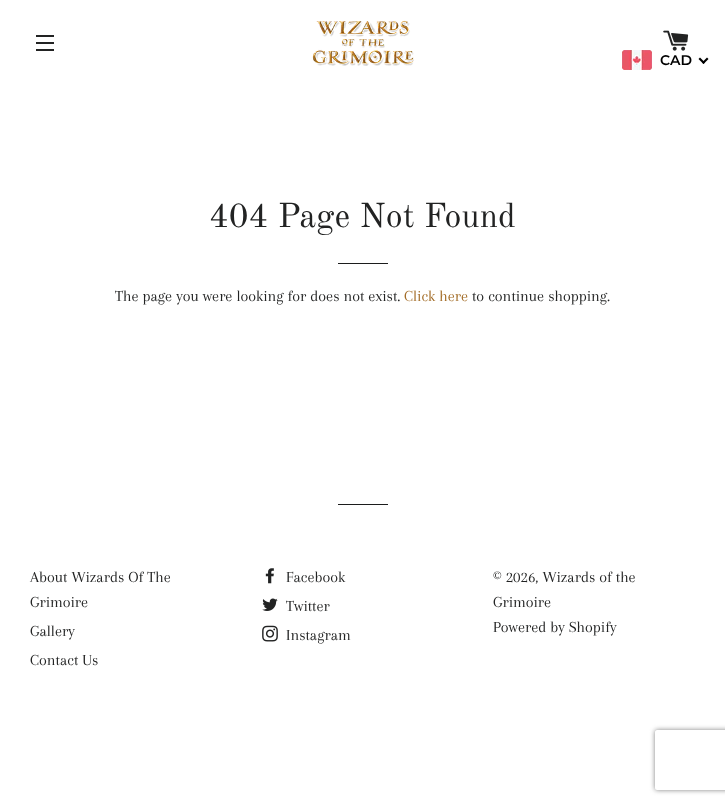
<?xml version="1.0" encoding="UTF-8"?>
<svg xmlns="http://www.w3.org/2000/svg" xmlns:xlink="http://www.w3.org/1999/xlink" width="725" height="804">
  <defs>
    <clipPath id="clip1"><path d="M 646 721 h 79 v 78 h -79 z m 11 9 h 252 c 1 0 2 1 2 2 v 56 c 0 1 -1 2 -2 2 h -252 c -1 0 -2 -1 -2 -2 v -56 c 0 -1 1 -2 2 -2 z" clip-rule="evenodd" /></clipPath>
  </defs>
  <rect width="100%" height="100%" fill="#ffffff" />
  <rect x="36" y="35" width="18" height="2" fill="#222323" />
  <rect x="36" y="42" width="18" height="2" fill="#222323" />
  <rect x="36" y="49" width="18" height="2" fill="#222323" />
  <image x="312" y="20" width="102" height="46" xlink:href="image1.png" />
  <image x="663" y="30" width="26" height="21" xlink:href="image2.png" />
  <image x="622" y="50" width="30" height="20" xlink:href="image3.png" />
  <path d="M 707 57.5 l 1.5 1.5 l -5 5 l -1.5 -1.5 z" fill="#000000" />
  <path d="M 700 57.5 l 5 5 l -1.5 1.5 l -5 -5 z" fill="#000000" />
  <rect x="338" y="263" width="50" height="1" fill="#1c1d1d" />
  <rect x="338" y="504" width="50" height="1" fill="#1c1d1d" />
  <image x="265" y="568" width="9" height="16" xlink:href="image4.png" />
  <image x="262" y="598" width="16" height="13" xlink:href="image5.png" />
  <image x="262" y="625" width="16" height="17" xlink:href="image6.png" />
  <g clip-path="url(#clip1)">
    <rect x="655" y="730" width="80" height="60" rx="2" fill="#808080" filter="blur(2.5px)" />
  </g>
  <text x="660" y="65" style="font-family: Montserrat; font-size: 14px; font-weight: 600; fill: #000000">CAD</text>
  <text x="209" y="227" style="font-family: Old Standard TT; font-size: 34px; fill: #222323">404 Page Not Found</text>
  <text x="115" y="301" style="font-family: Arapey; font-size: 16px; fill: #222323">The page you were looking for does not exist.</text>
  <text x="404" y="301" style="font-family: Arapey; font-size: 16px; fill: #a26b25">Click here</text>
  <text x="472" y="301" style="font-family: Arapey; font-size: 16px; fill: #222323">to continue shopping.</text>
  <text x="30" y="582" style="font-family: Arapey; font-size: 16px; fill: #222323">About Wizards Of The</text>
  <text x="30" y="607" style="font-family: Arapey; font-size: 16px; fill: #222323">Grimoire</text>
  <text x="30" y="636" style="font-family: Arapey; font-size: 16px; fill: #222323">Gallery</text>
  <text x="30" y="665" style="font-family: Arapey; font-size: 16px; fill: #222323">Contact Us</text>
  <text x="286" y="582" style="font-family: Arapey; font-size: 16px; fill: #222323">Facebook</text>
  <text x="286" y="611" style="font-family: Arapey; font-size: 16px; fill: #222323">Twitter</text>
  <text x="286" y="640" style="font-family: Arapey; font-size: 16px; fill: #222323">Instagram</text>
  <text x="493" y="582" style="font-family: Arapey; font-size: 16px; fill: #222323">© 2026, Wizards of the</text>
  <text x="493" y="607" style="font-family: Arapey; font-size: 16px; fill: #222323">Grimoire</text>
  <text x="493" y="632" style="font-family: Arapey; font-size: 16px; fill: #222323">Powered by Shopify</text>
</svg>
